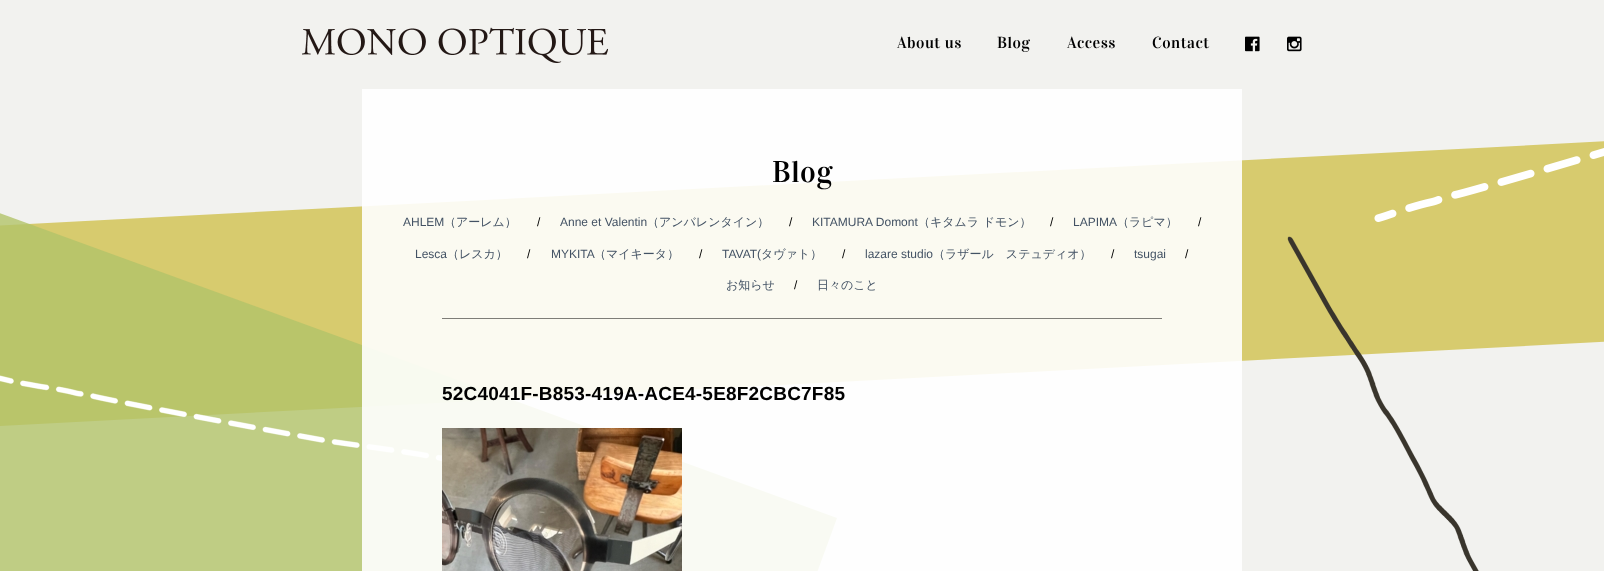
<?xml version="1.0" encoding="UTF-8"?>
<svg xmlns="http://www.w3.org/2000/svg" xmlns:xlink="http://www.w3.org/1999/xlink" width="1604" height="571">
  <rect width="100%" height="100%" fill="#f2f2ef" />
  <image x="302" y="27" width="306" height="36" xlink:href="image1.png" />
  <image x="1245" y="36" width="15" height="16" xlink:href="image2.png" />
  <image x="1287" y="36" width="15" height="16" xlink:href="image3.png" />
  <path d="M -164 234 l 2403 -126 l 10 200 l -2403 126 z" fill="#d7cb6e" />
  <path d="M -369 79 l 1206 439 l -147 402 l -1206 -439 z" fill="#b2c369" fill-opacity="0.8" />
  <image x="0" y="375" width="442" height="87" xlink:href="image7.png" />
  <rect x="362" y="89" width="880" height="482" fill="#ffffff" fill-opacity="0.9" />
  <rect x="442" y="318" width="720" height="1" fill="#7e7d78" />
  <image x="442" y="428" width="240" height="143" xlink:href="image4.png" />
  <image x="1374" y="148" width="230" height="74" xlink:href="image5.png" />
  <image x="1287" y="236" width="192" height="335" xlink:href="image6.png" />
  <text x="897" y="48" style="font-family: Vidaloka; font-size: 16px; letter-spacing: 0.5px; fill: #000000">About us</text>
  <text x="997" y="48" style="font-family: Vidaloka; font-size: 16px; letter-spacing: 0.5px; fill: #000000">Blog</text>
  <text x="1067" y="48" style="font-family: Vidaloka; font-size: 16px; letter-spacing: 0.5px; fill: #000000">Access</text>
  <text x="1152" y="48" style="font-family: Vidaloka; font-size: 16px; letter-spacing: 0.5px; fill: #000000">Contact</text>
  <text x="772" y="182" style="font-family: Vidaloka; font-size: 30px; letter-spacing: 0.5px; fill: #000000">Blog</text>
  <text x="403" y="226" style="font-family: Liberation Sans; font-size: 12px; fill: #435264">AHLEM</text>
  <text x="444" y="226" style="font-family: WenQuanYi Zen Hei; font-size: 12px; font-weight: 500; fill: #435264">（アーレム）</text>
  <text x="537" y="226" style="font-family: Liberation Sans; font-size: 12px; fill: #000000">/</text>
  <text x="560" y="226" style="font-family: Liberation Sans; font-size: 12px; fill: #435264">Anne et Valentin</text>
  <text x="647" y="226" style="font-family: WenQuanYi Zen Hei; font-size: 12px; font-weight: 500; fill: #435264">（アンバレンタイン）</text>
  <text x="789" y="226" style="font-family: Liberation Sans; font-size: 12px; fill: #000000">/</text>
  <text x="812" y="226" style="font-family: Liberation Sans; font-size: 12px; fill: #435264">KITAMURA Domont</text>
  <text x="918" y="226" style="font-family: WenQuanYi Zen Hei; font-size: 12px; font-weight: 500; fill: #435264">（キタムラ ドモン）</text>
  <text x="1050" y="226" style="font-family: Liberation Sans; font-size: 12px; fill: #000000">/</text>
  <text x="1073" y="226" style="font-family: Liberation Sans; font-size: 12px; fill: #435264">LAPIMA</text>
  <text x="1117" y="226" style="font-family: WenQuanYi Zen Hei; font-size: 12px; font-weight: 500; fill: #435264">（ラピマ）</text>
  <text x="1198" y="226" style="font-family: Liberation Sans; font-size: 12px; fill: #000000">/</text>
  <text x="415" y="258" style="font-family: Liberation Sans; font-size: 12px; fill: #435264">Lesca</text>
  <text x="447" y="258" style="font-family: WenQuanYi Zen Hei; font-size: 12px; font-weight: 500; fill: #435264">（レスカ）</text>
  <text x="527" y="258" style="font-family: Liberation Sans; font-size: 12px; fill: #000000">/</text>
  <text x="551" y="258" style="font-family: Liberation Sans; font-size: 12px; fill: #435264">MYKITA</text>
  <text x="594" y="258" style="font-family: WenQuanYi Zen Hei; font-size: 12px; font-weight: 500; fill: #435264">（マイキータ）</text>
  <text x="699" y="258" style="font-family: Liberation Sans; font-size: 12px; fill: #000000">/</text>
  <text x="722" y="258" style="font-family: Liberation Sans; font-size: 12px; fill: #435264">TAVAT(</text>
  <text x="761" y="258" style="font-family: WenQuanYi Zen Hei; font-size: 12px; font-weight: 500; fill: #435264">タヴァト）</text>
  <text x="842" y="258" style="font-family: Liberation Sans; font-size: 12px; fill: #000000">/</text>
  <text x="865" y="258" style="font-family: Liberation Sans; font-size: 12px; fill: #435264">lazare studio</text>
  <text x="933" y="258" style="font-family: WenQuanYi Zen Hei; font-size: 12px; font-weight: 500; fill: #435264">（ラザール　ステュディオ）</text>
  <text x="1111" y="258" style="font-family: Liberation Sans; font-size: 12px; fill: #000000">/</text>
  <text x="1134" y="258" style="font-family: Liberation Sans; font-size: 12px; fill: #435264">tsugai</text>
  <text x="1185" y="258" style="font-family: Liberation Sans; font-size: 12px; fill: #000000">/</text>
  <text x="726" y="289" style="font-family: WenQuanYi Zen Hei; font-size: 12px; font-weight: 500; fill: #435264">お知らせ</text>
  <text x="794" y="289" style="font-family: Liberation Sans; font-size: 12px; fill: #000000">/</text>
  <text x="817" y="289" style="font-family: WenQuanYi Zen Hei; font-size: 12px; font-weight: 500; fill: #435264">日々のこと</text>
  <text x="442" y="400" style="font-family: Liberation Sans; font-size: 19px; font-weight: bold; letter-spacing: 0.2px; fill: #000000">52C4041F-B853-419A-ACE4-5E8F2CBC7F85</text>
</svg>
